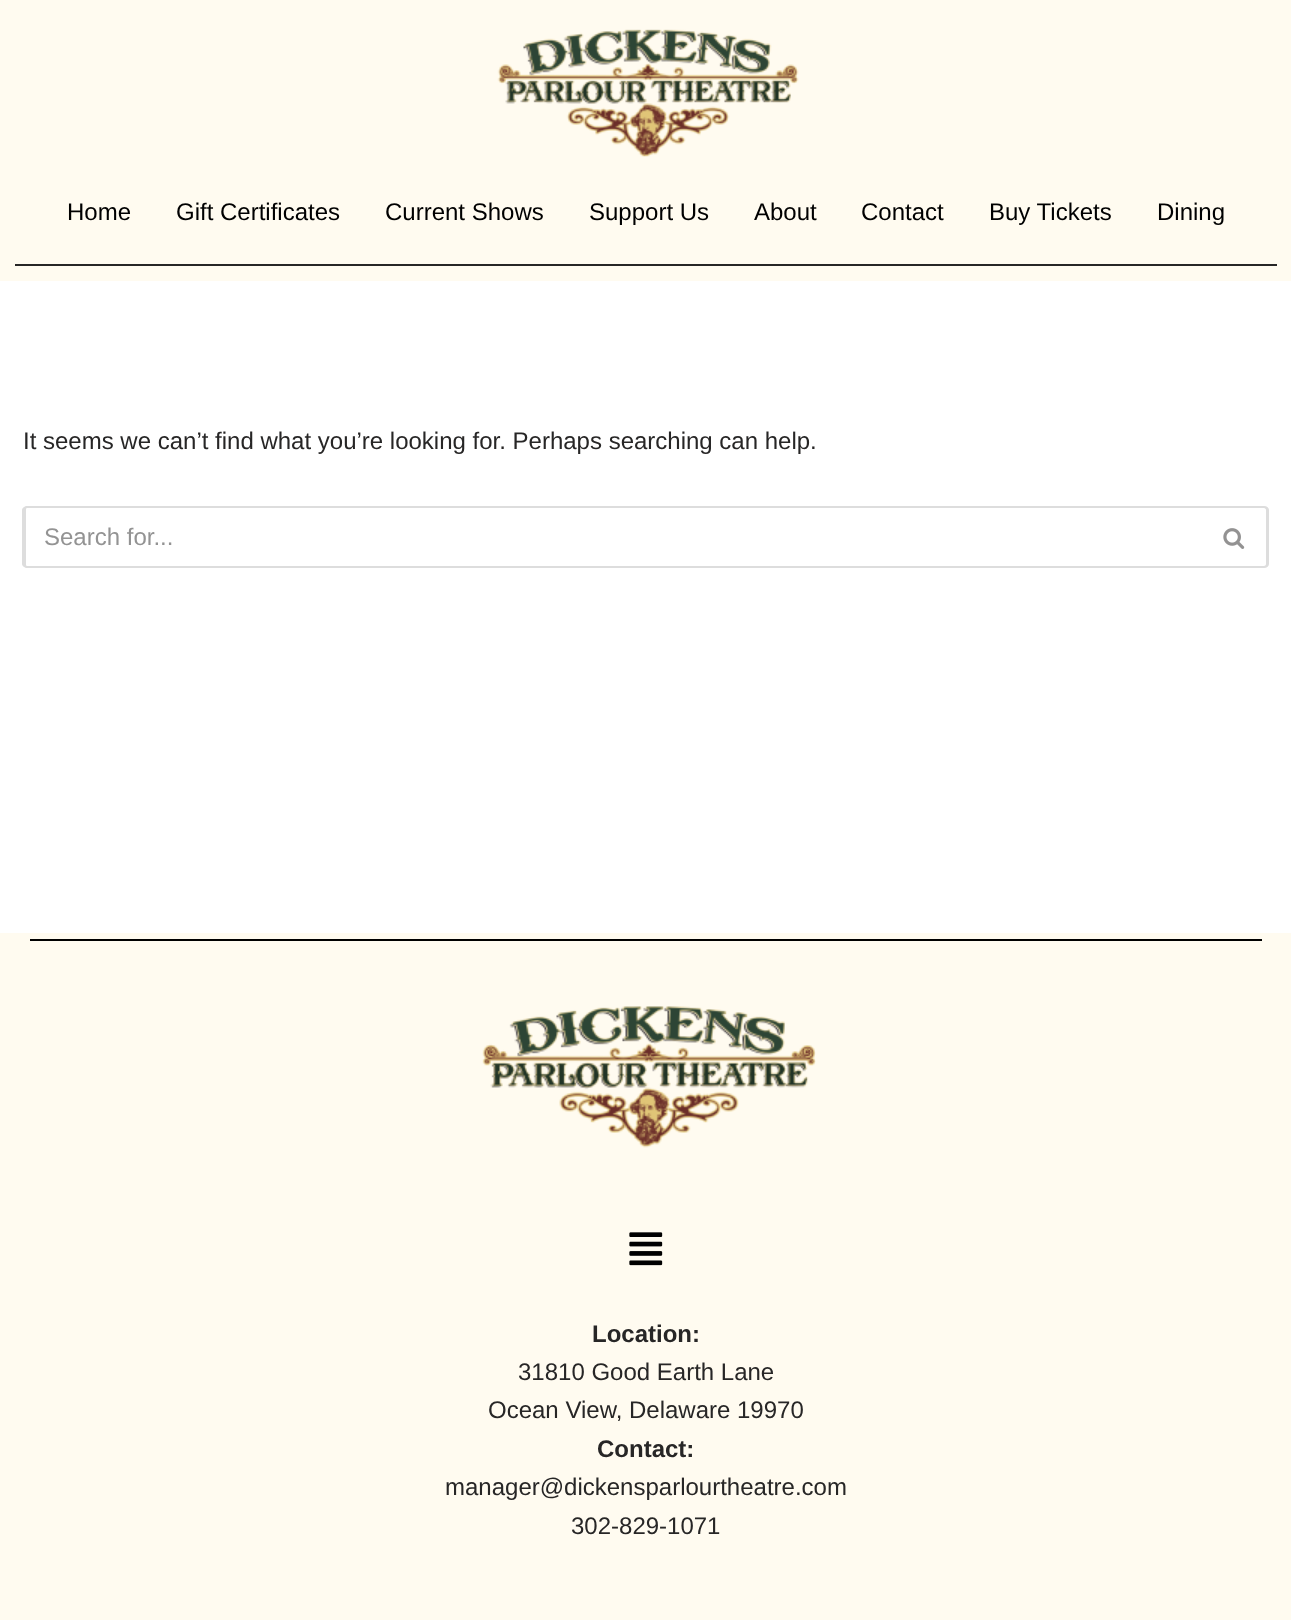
<?xml version="1.0" encoding="UTF-8"?>
<svg xmlns="http://www.w3.org/2000/svg" xmlns:xlink="http://www.w3.org/1999/xlink" width="1291" height="1620">
  <rect width="100%" height="100%" fill="#ffffff" />
  <rect width="1291" height="281" fill="#fffbf0" />
  <image x="497" y="29" width="302" height="128" xlink:href="image1.png" />
  <rect x="15" y="264" width="1262" height="2" fill="#272626" />
  <path d="M 27 506 h 1175 v 62 h -1175 c -2 0 -5 -2 -5 -4 v -54 c 0 -2 3 -4 5 -4 z m 0 2 h 1175 v 58 h -1175 c -1 0 -1 -1 -1 -2 v -54 c 0 -1 0 -2 1 -2 z" fill="#dddddd" fill-rule="evenodd" />
  <path d="M 1202 506 h 62 c 3 0 5 2 5 4 v 54 c 0 2 -2 4 -5 4 h -62 z m 0 2 h 62 c 1 0 2 1 2 2 v 54 c 0 1 -1 2 -2 2 h -62 z" fill="#dddddd" fill-rule="evenodd" />
  <image x="1223" y="528" width="22" height="21" xlink:href="image2.png" />
  <rect y="933" width="1291" height="687" fill="#fffbf0" />
  <rect x="30" y="939" width="1232" height="2" fill="#000000" />
  <image x="482" y="1006" width="334" height="142" xlink:href="image3.png" />
  <image x="629" y="1232" width="34" height="34" xlink:href="image4.png" />
  <text x="67" y="220" style="font-family: Liberation Sans; font-size: 24px; fill: #000000">Home</text>
  <text x="176" y="220" style="font-family: Liberation Sans; font-size: 24px; fill: #000000">Gift Certificates</text>
  <text x="385" y="220" style="font-family: Liberation Sans; font-size: 24px; fill: #000000">Current Shows</text>
  <text x="589" y="220" style="font-family: Liberation Sans; font-size: 24px; fill: #000000">Support Us</text>
  <text x="754" y="220" style="font-family: Liberation Sans; font-size: 24px; fill: #000000">About</text>
  <text x="861" y="220" style="font-family: Liberation Sans; font-size: 24px; fill: #000000">Contact</text>
  <text x="989" y="220" style="font-family: Liberation Sans; font-size: 24px; fill: #000000">Buy Tickets</text>
  <text x="1157" y="220" style="font-family: Liberation Sans; font-size: 24px; fill: #000000">Dining</text>
  <text x="23" y="449" style="font-family: Liberation Sans; font-size: 24px; fill: #272626">It seems we can’t find what you’re looking for. Perhaps searching can help.</text>
  <text x="44" y="545" style="font-family: Liberation Sans; font-size: 24px; fill: #939393">Search for...</text>
  <text x="592" y="1342" style="font-family: Liberation Sans; font-size: 24px; font-weight: bold; fill: #272626">Location:</text>
  <text x="518" y="1380" style="font-family: Liberation Sans; font-size: 24px; fill: #272626">31810 Good Earth Lane</text>
  <text x="488" y="1418" style="font-family: Liberation Sans; font-size: 24px; fill: #272626">Ocean View, Delaware 19970</text>
  <text x="597" y="1457" style="font-family: Liberation Sans; font-size: 24px; font-weight: bold; fill: #272626">Contact:</text>
  <text x="445" y="1495" style="font-family: Liberation Sans; font-size: 24px; fill: #272626">manager@dickensparlourtheatre.com</text>
  <text x="571" y="1534" style="font-family: Liberation Sans; font-size: 24px; fill: #272626">302-829-1071</text>
</svg>
